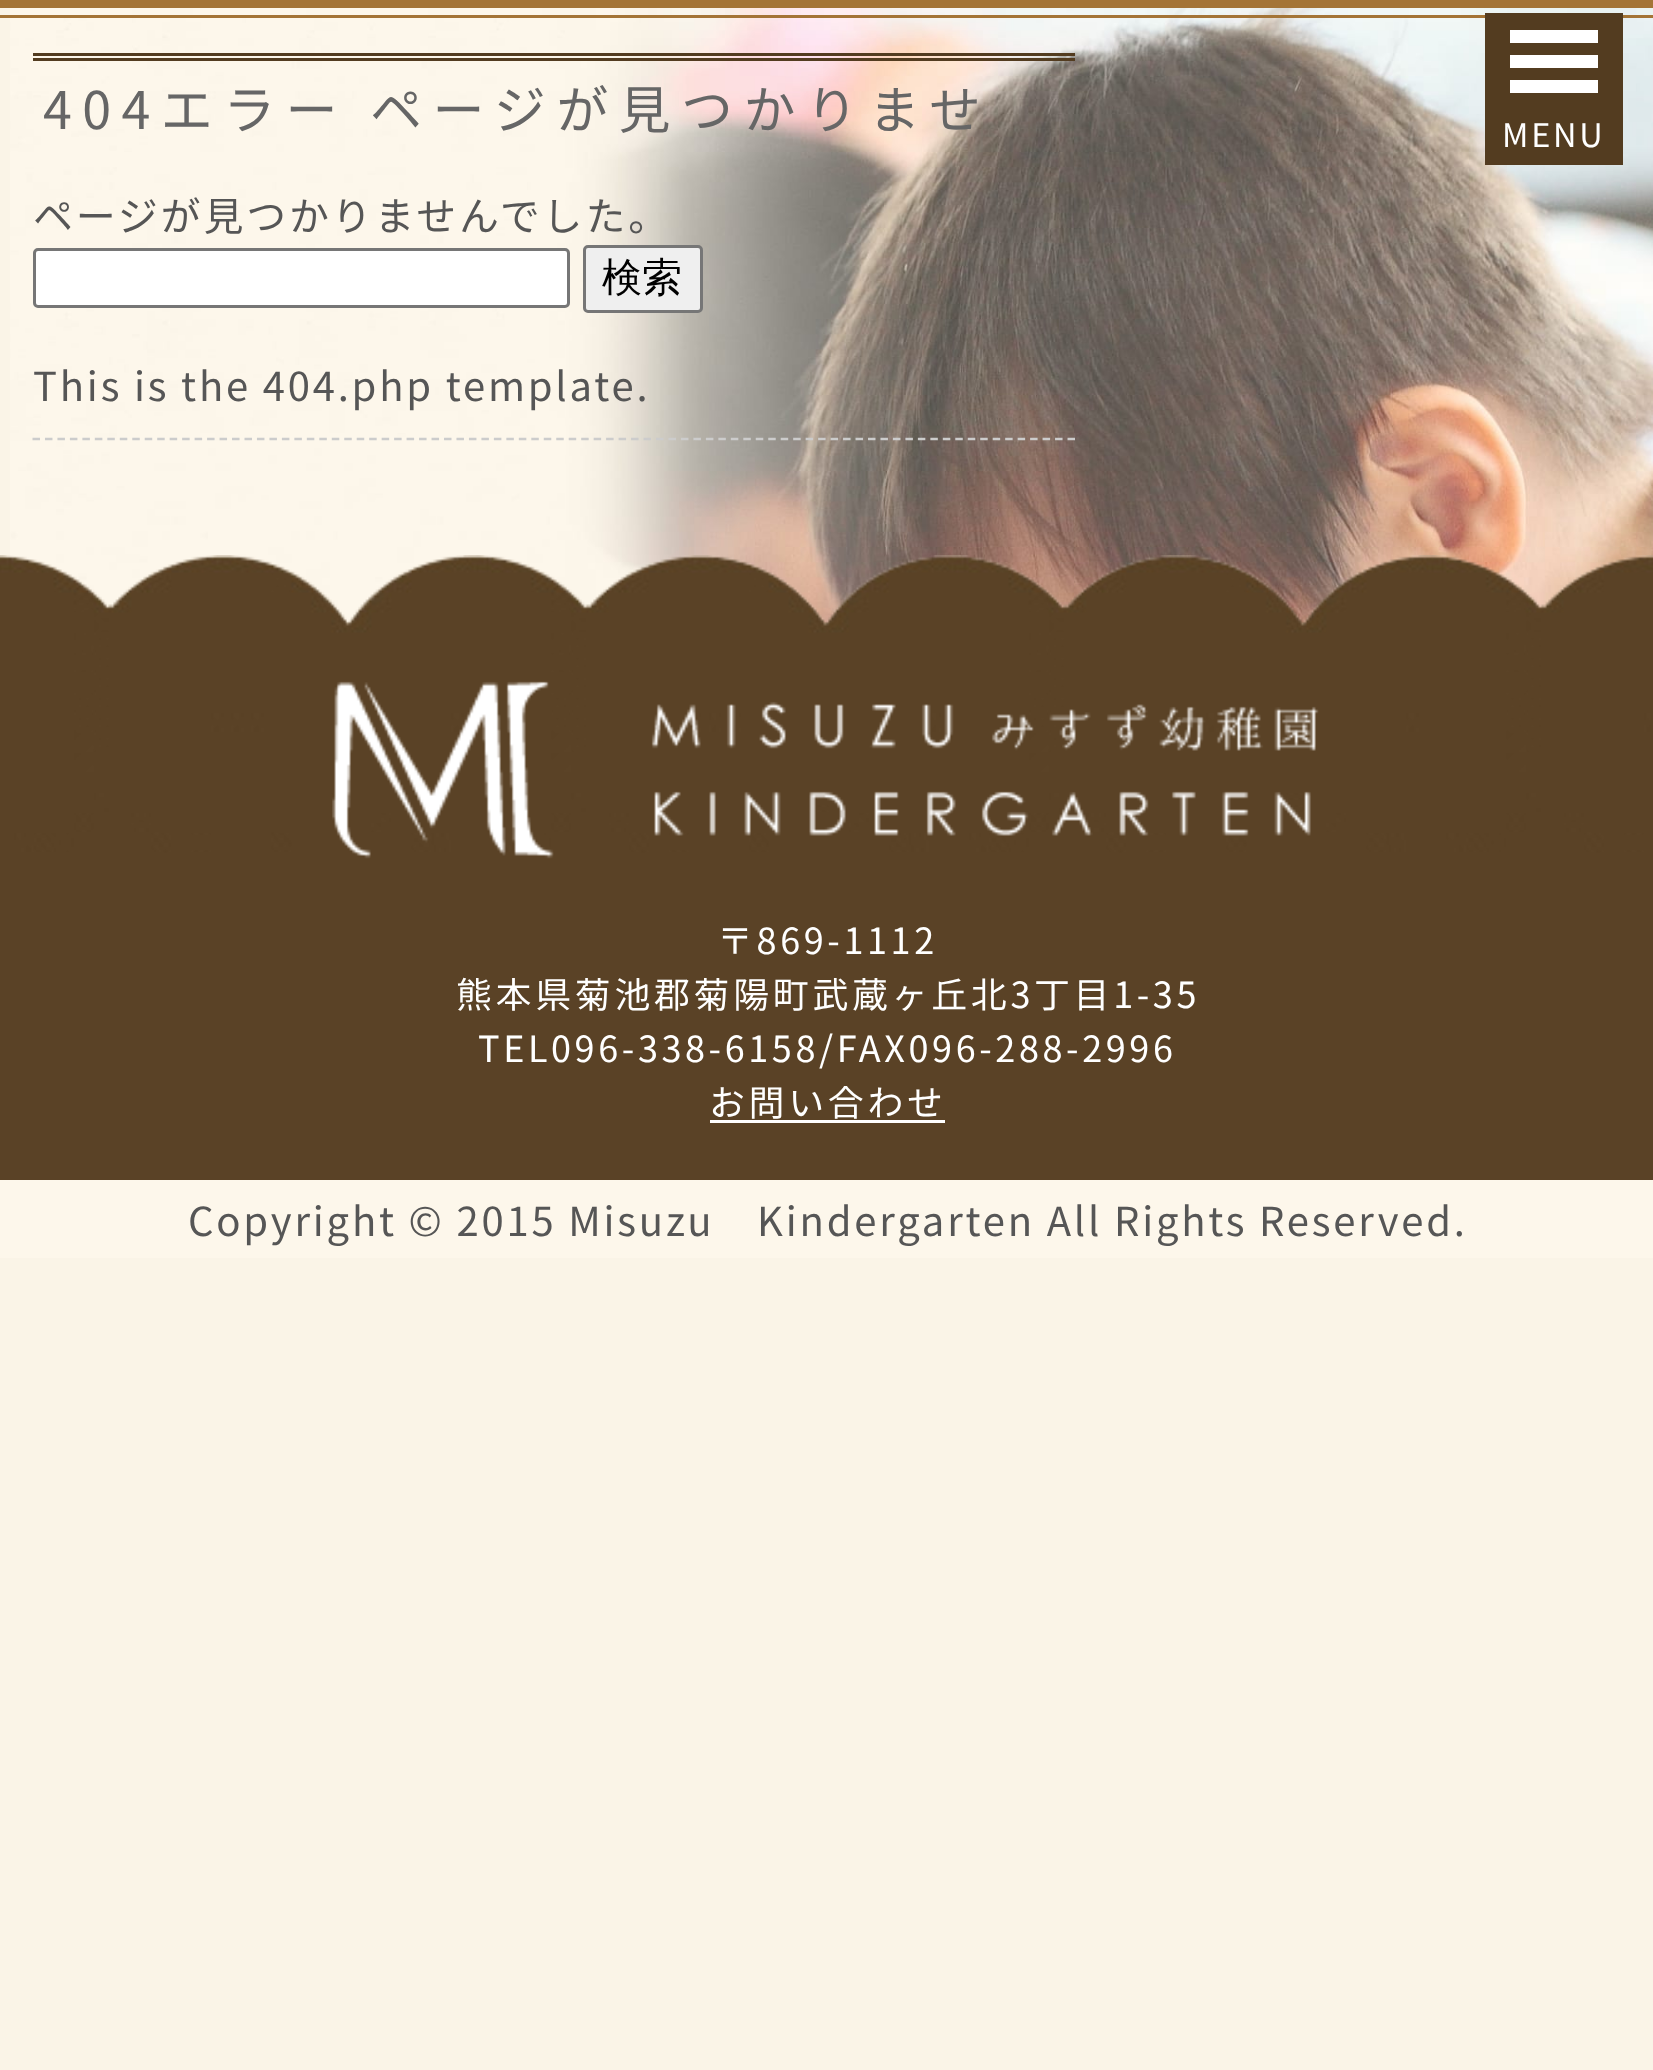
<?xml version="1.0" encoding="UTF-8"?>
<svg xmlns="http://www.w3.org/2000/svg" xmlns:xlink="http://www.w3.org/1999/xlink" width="1653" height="2070">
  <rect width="100%" height="100%" fill="#faf4e7" />
  <image x="10" y="8" width="1643" height="616" xlink:href="image1.png" />
  <rect width="1653" height="8" fill="#a47436" />
  <rect y="15" width="1653" height="3" fill="#a47436" />
  <rect x="33" y="53" width="1042" height="3" fill="#533c20" />
  <rect x="33" y="58" width="1042" height="3" fill="#533c20" />
  <rect x="34.5" y="249.5" width="534" height="57" rx="3.5" fill="#ffffff" stroke="#767676" stroke-width="3" />
  <rect x="584.5" y="246.5" width="117" height="65" rx="3.5" fill="#efefef" stroke="#767676" stroke-width="3" />
  <path d="M 32.5 439 h 1042.5" fill="none" stroke="#cccccc" stroke-width="2.5" stroke-dasharray="7.5 4.97" />
  <image x="0" y="555" width="1653" height="625" xlink:href="image2.png" />
  <image x="332" y="681" width="987" height="178" xlink:href="image3.png" />
  <rect x="710" y="1120" width="235" height="3" fill="#ffffff" />
  <rect y="1180" width="1653" height="78" fill="#fdf7eb" />
  <rect x="1485" y="13" width="138" height="152" fill="#533c20" />
  <rect x="1510" y="30" width="88" height="13" fill="#ffffff" />
  <rect x="1510" y="55" width="88" height="13" fill="#ffffff" />
  <rect x="1510" y="80" width="88" height="13" fill="#ffffff" />
  <text x="43" y="129" style="font-family: Noto Sans JP; font-size: 52px; letter-spacing: 10.4px; fill: #666666">404エラー ページが見つかりませ</text>
  <text x="33" y="231" style="font-family: Noto Sans JP; font-size: 40px; letter-spacing: 2.8px; fill: #565656">ページが見つかりませんでした。</text>
  <text x="602" y="291" style="font-family: WenQuanYi Zen Hei; font-size: 40px; font-weight: 500; fill: #000000">検索</text>
  <text x="33" y="401" style="font-family: Noto Sans JP; font-size: 40px; letter-spacing: 2.8px; fill: #565656">This is the 404.php template.</text>
  <text x="717" y="954" style="font-family: Noto Sans JP; font-size: 36px; letter-spacing: 3.6px; fill: #ffffff">〒869-1112</text>
  <text x="456" y="1008" style="font-family: Noto Sans JP; font-size: 36px; letter-spacing: 3.6px; fill: #ffffff">熊本県菊池郡菊陽町武蔵ヶ丘北3丁目1-35</text>
  <text x="478" y="1062" style="font-family: Noto Sans JP; font-size: 36px; letter-spacing: 3.6px; fill: #ffffff">TEL096-338-6158/FAX096-288-2996</text>
  <text x="709" y="1116" style="font-family: Noto Sans JP; font-size: 36px; letter-spacing: 3.6px; fill: #ffffff">お問い合わせ</text>
  <text x="188" y="1236" style="font-family: Noto Sans JP; font-size: 40px; letter-spacing: 2.8px; fill: #565656">Copyright © 2015 Misuzu　Kindergarten All Rights Reserved.</text>
  <text x="1502" y="147" style="font-family: Noto Sans JP; font-size: 32.5px; letter-spacing: 2.8px; fill: #ffffff">MENU</text>
</svg>
